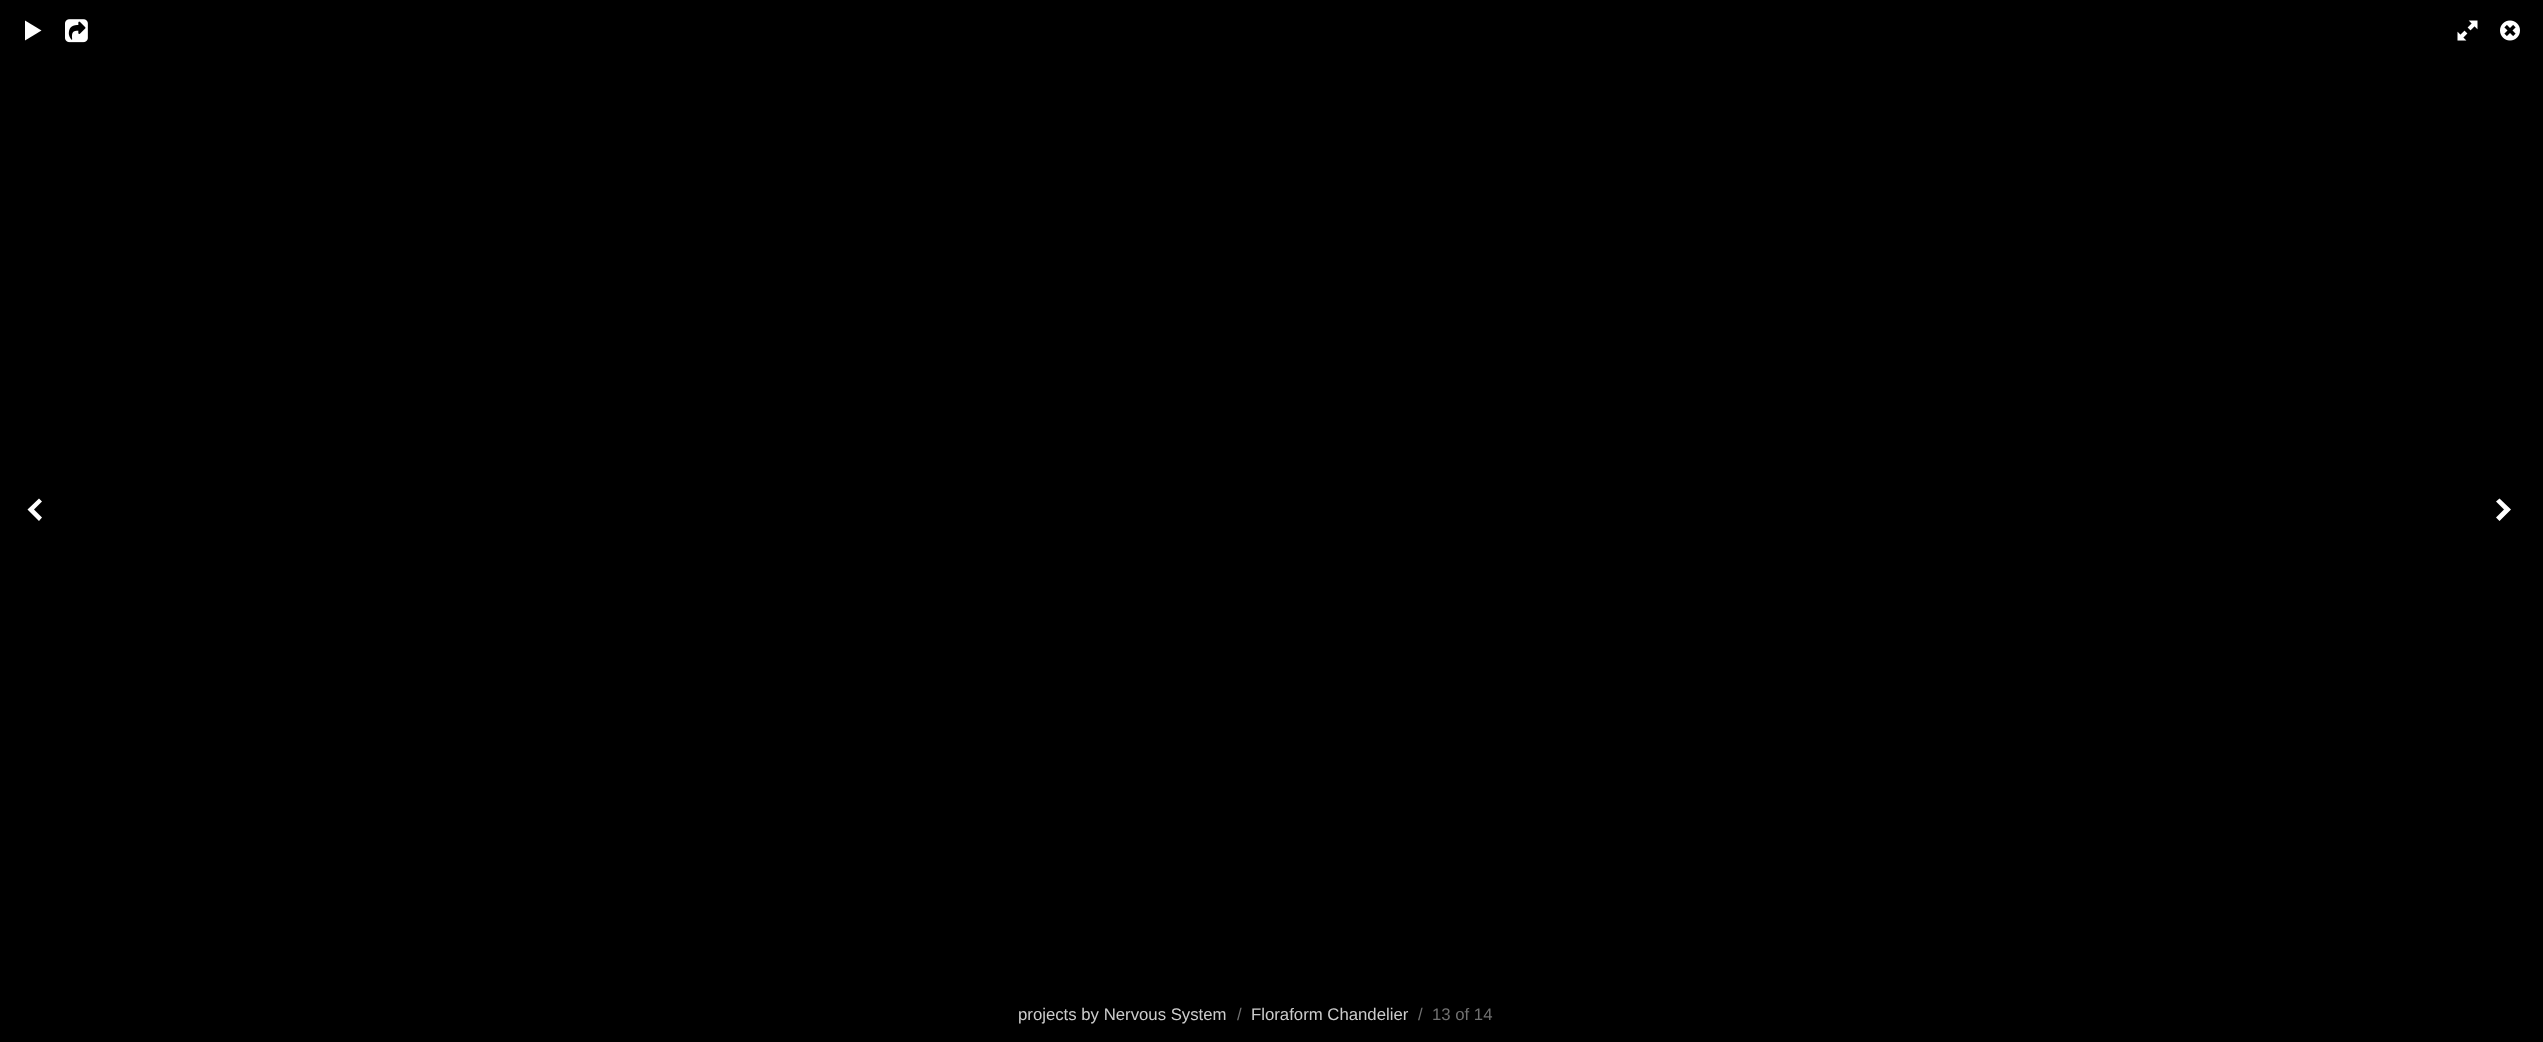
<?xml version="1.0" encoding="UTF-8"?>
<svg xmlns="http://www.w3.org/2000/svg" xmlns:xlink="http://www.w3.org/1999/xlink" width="2543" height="1042">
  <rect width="100%" height="100%" fill="#000000" />
  <path d="M 25 40.5 v -20 l 16.5 10 z" fill="#ffffff" />
  <image x="65" y="19" width="23" height="24" xlink:href="image1.png" />
  <image x="2457" y="20" width="21" height="21" xlink:href="image2.png" />
  <image x="2500" y="20" width="20" height="21" xlink:href="image3.png" />
  <path d="M 27.5 509.5 l 11.5 -11 l 3 3 l -8 8 l 8 8 l -3 3.5 z" fill="#ffffff" />
  <path d="M 2496 517.5 l 8 -8 l -8 -8 l 3.5 -3 l 11.5 11 l -11.5 11.5 z" fill="#ffffff" />
  <text x="1018" y="1020" style="font-family: Liberation Sans; font-size: 16.75px; fill: #cccccc">projects by Nervous System</text>
  <text x="1237" y="1020" style="font-family: Liberation Sans; font-size: 16.75px; fill: #707070">/</text>
  <text x="1251" y="1020" style="font-family: Liberation Sans; font-size: 16.75px; fill: #cccccc">Floraform Chandelier</text>
  <text x="1418" y="1020" style="font-family: Liberation Sans; font-size: 16.75px; fill: #707070" xml:space="preserve">/  13 of 14</text>
</svg>
